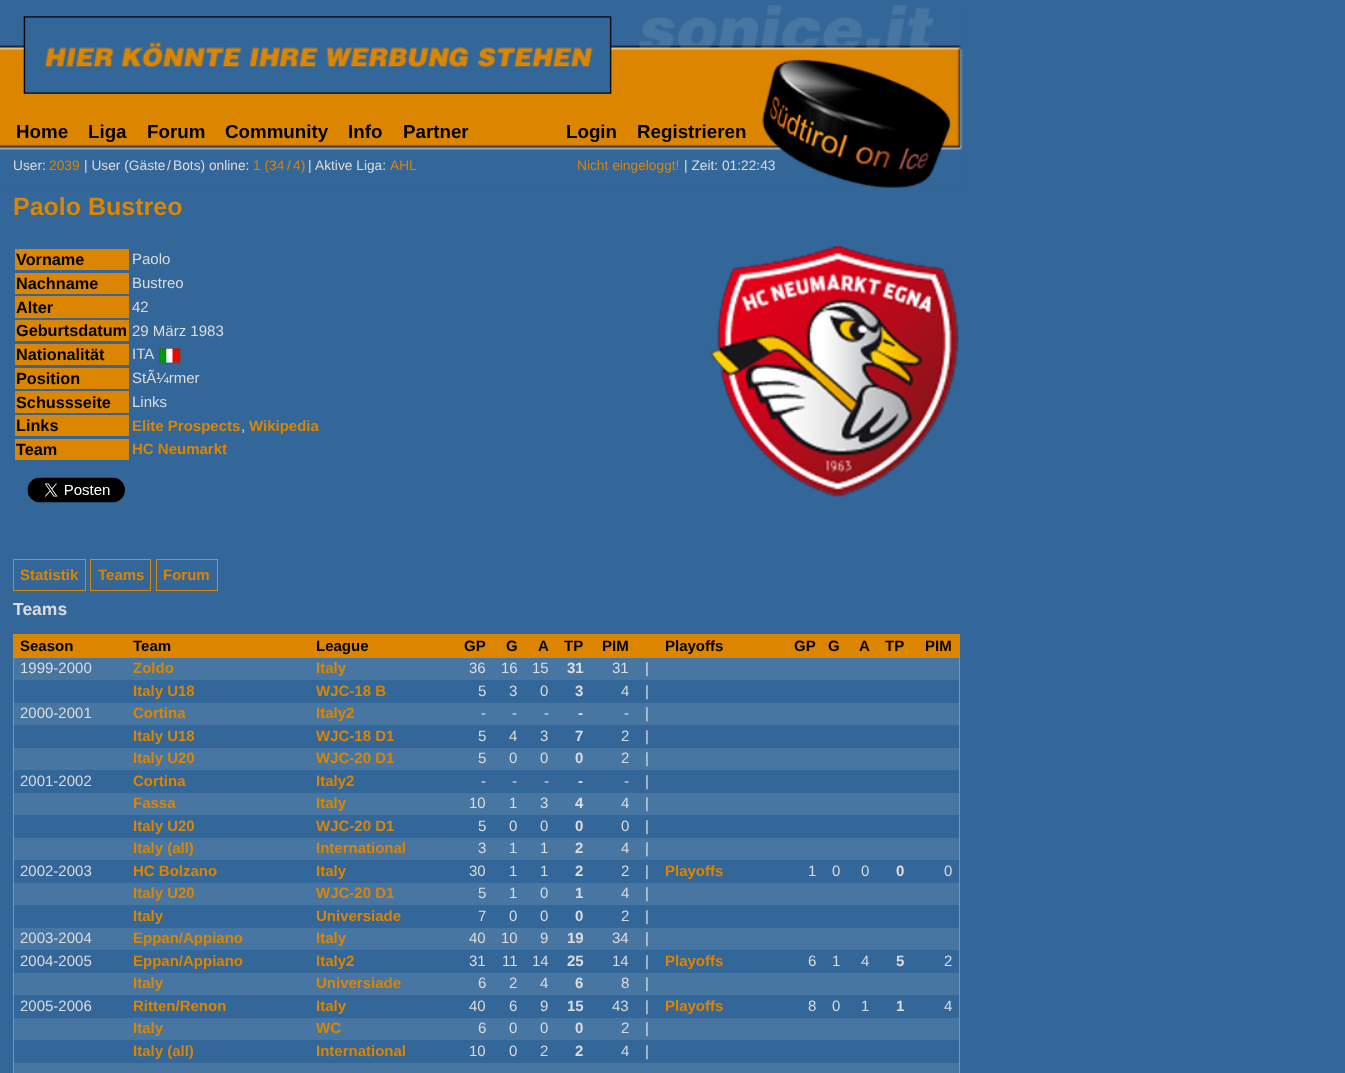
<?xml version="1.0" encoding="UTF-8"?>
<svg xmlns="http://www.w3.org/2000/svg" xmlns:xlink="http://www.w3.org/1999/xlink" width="1345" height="1073">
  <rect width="100%" height="100%" fill="#336699" />
  <image x="0" y="5" width="963" height="183" xlink:href="image1.png" />
  <rect x="15" y="249" width="114" height="21" fill="#db8500" />
  <rect x="15" y="273" width="114" height="21" fill="#db8500" />
  <rect x="15" y="296" width="114" height="22" fill="#db8500" />
  <rect x="15" y="320" width="114" height="21" fill="#db8500" />
  <rect x="15" y="344" width="114" height="21" fill="#db8500" />
  <rect x="159.5" y="348.5" width="21" height="15" fill="none" stroke="#555555" />
  <image x="160" y="348" width="20" height="15" xlink:href="image2.png" />
  <rect x="15" y="368" width="114" height="21" fill="#db8500" />
  <rect x="15" y="391" width="114" height="22" fill="#db8500" />
  <rect x="15" y="415" width="114" height="21" fill="#db8500" />
  <rect x="15" y="439" width="114" height="21" fill="#db8500" />
  <image x="710" y="246" width="249" height="251" xlink:href="image3.png" />
  <image x="27" y="477" width="98" height="26" xlink:href="image4.png" />
  <rect x="13.5" y="559.5" width="72" height="31" fill="none" stroke="#db8500" />
  <rect x="90.5" y="559.5" width="60" height="31" fill="none" stroke="#db8500" />
  <rect x="156.5" y="559.5" width="61" height="31" fill="none" stroke="#db8500" />
  <rect x="13.5" y="634.5" width="946" height="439" fill="none" stroke="#db8500" />
  <rect x="14" y="635" width="945" height="23" fill="#db8500" />
  <rect x="14" y="658" width="945" height="22" fill="#4876a3" />
  <rect x="14" y="703" width="945" height="22" fill="#4876a3" />
  <rect x="14" y="748" width="945" height="22" fill="#4876a3" />
  <rect x="14" y="793" width="945" height="22" fill="#4876a3" />
  <rect x="14" y="838" width="945" height="22" fill="#4876a3" />
  <rect x="14" y="883" width="945" height="22" fill="#4876a3" />
  <rect x="14" y="928" width="945" height="22" fill="#4876a3" />
  <rect x="14" y="973" width="945" height="22" fill="#4876a3" />
  <rect x="14" y="1018" width="945" height="22" fill="#4876a3" />
  <rect x="14" y="1063" width="945" height="10" fill="#4876a3" />
  <text x="16" y="138" style="font-family: Liberation Sans; font-size: 18.75px; font-weight: bold; fill: #000000">Home</text>
  <text x="88" y="138" style="font-family: Liberation Sans; font-size: 18.75px; font-weight: bold; fill: #000000">Liga</text>
  <text x="147" y="138" style="font-family: Liberation Sans; font-size: 18.75px; font-weight: bold; fill: #000000">Forum</text>
  <text x="225" y="138" style="font-family: Liberation Sans; font-size: 18.75px; font-weight: bold; fill: #000000">Community</text>
  <text x="348" y="138" style="font-family: Liberation Sans; font-size: 18.75px; font-weight: bold; fill: #000000">Info</text>
  <text x="403" y="138" style="font-family: Liberation Sans; font-size: 18.75px; font-weight: bold; fill: #000000">Partner</text>
  <text x="566" y="138" style="font-family: Liberation Sans; font-size: 18.75px; font-weight: bold; fill: #000000">Login</text>
  <text x="637" y="138" style="font-family: Liberation Sans; font-size: 18.75px; font-weight: bold; fill: #000000">Registrieren</text>
  <text x="13" y="170" style="font-family: Liberation Sans; font-size: 13.75px; fill: #dcdcdc">User:</text>
  <text x="49" y="170" style="font-family: Liberation Sans; font-size: 13.75px; fill: #db8500">2039</text>
  <text x="84" y="170" style="font-family: Liberation Sans; font-size: 13.75px; fill: #dcdcdc">| User (Gäste</text>
  <text x="167" y="170" style="font-family: Liberation Sans; font-size: 13.75px; fill: #dcdcdc">/</text>
  <text x="173" y="170" style="font-family: Liberation Sans; font-size: 13.75px; fill: #dcdcdc">Bots) online:</text>
  <text x="253" y="170" style="font-family: Liberation Sans; font-size: 13.75px; fill: #db8500">1 (34</text>
  <text x="287" y="170" style="font-family: Liberation Sans; font-size: 13.75px; fill: #db8500">/</text>
  <text x="293" y="170" style="font-family: Liberation Sans; font-size: 13.75px; fill: #db8500">4)</text>
  <text x="308" y="170" style="font-family: Liberation Sans; font-size: 13.75px; fill: #dcdcdc">|</text>
  <text x="315" y="170" style="font-family: Liberation Sans; font-size: 13.75px; fill: #dcdcdc">Aktive Liga:</text>
  <text x="390" y="170" style="font-family: Liberation Sans; font-size: 13.75px; fill: #db8500">AHL</text>
  <text x="577" y="170" style="font-family: Liberation Sans; font-size: 13.75px; fill: #db8500">Nicht eingeloggt!</text>
  <text x="684" y="170" style="font-family: Liberation Sans; font-size: 13.75px; fill: #dcdcdc">| Zeit: 01:22:43</text>
  <text x="13" y="215" style="font-family: Liberation Sans; font-size: 25px; font-weight: bold; fill: #db8500">Paolo Bustreo</text>
  <text x="16" y="265" style="font-family: Liberation Sans; font-size: 16.25px; font-weight: bold; fill: #000000">Vorname</text>
  <text x="132" y="264" style="font-family: Liberation Sans; font-size: 15px; fill: #dcdcdc">Paolo</text>
  <text x="16" y="289" style="font-family: Liberation Sans; font-size: 16.25px; font-weight: bold; fill: #000000">Nachname</text>
  <text x="132" y="288" style="font-family: Liberation Sans; font-size: 15px; fill: #dcdcdc">Bustreo</text>
  <text x="16" y="313" style="font-family: Liberation Sans; font-size: 16.25px; font-weight: bold; fill: #000000">Alter</text>
  <text x="132" y="312" style="font-family: Liberation Sans; font-size: 15px; fill: #dcdcdc">42</text>
  <text x="16" y="336" style="font-family: Liberation Sans; font-size: 16.25px; font-weight: bold; fill: #000000">Geburtsdatum</text>
  <text x="132" y="336" style="font-family: Liberation Sans; font-size: 15px; fill: #dcdcdc">29 März 1983</text>
  <text x="16" y="360" style="font-family: Liberation Sans; font-size: 16.25px; font-weight: bold; fill: #000000">Nationalität</text>
  <text x="132" y="359" style="font-family: Liberation Sans; font-size: 15px; fill: #dcdcdc">ITA</text>
  <text x="16" y="384" style="font-family: Liberation Sans; font-size: 16.25px; font-weight: bold; fill: #000000">Position</text>
  <text x="132" y="383" style="font-family: Liberation Sans; font-size: 15px; fill: #dcdcdc">StÃ¼rmer</text>
  <text x="16" y="408" style="font-family: Liberation Sans; font-size: 16.25px; font-weight: bold; fill: #000000">Schussseite</text>
  <text x="132" y="407" style="font-family: Liberation Sans; font-size: 15px; fill: #dcdcdc">Links</text>
  <text x="16" y="431" style="font-family: Liberation Sans; font-size: 16.25px; font-weight: bold; fill: #000000">Links</text>
  <text x="132" y="431" style="font-family: Liberation Sans; font-size: 15px; font-weight: bold; fill: #db8500">Elite Prospects</text>
  <text x="241" y="431" style="font-family: Liberation Sans; font-size: 15px; fill: #dcdcdc">,</text>
  <text x="249" y="431" style="font-family: Liberation Sans; font-size: 15px; font-weight: bold; fill: #db8500">Wikipedia</text>
  <text x="16" y="455" style="font-family: Liberation Sans; font-size: 16.25px; font-weight: bold; fill: #000000">Team</text>
  <text x="132" y="454" style="font-family: Liberation Sans; font-size: 15px; font-weight: bold; fill: #db8500">HC Neumarkt</text>
  <text x="20" y="580" style="font-family: Liberation Sans; font-size: 15px; font-weight: bold; fill: #db8500">Statistik</text>
  <text x="98" y="580" style="font-family: Liberation Sans; font-size: 15px; font-weight: bold; fill: #db8500">Teams</text>
  <text x="163" y="580" style="font-family: Liberation Sans; font-size: 15px; font-weight: bold; fill: #db8500">Forum</text>
  <text x="13" y="615" style="font-family: Liberation Sans; font-size: 17.5px; font-weight: bold; fill: #dcdcdc">Teams</text>
  <text x="20" y="651" style="font-family: Liberation Sans; font-size: 15px; font-weight: bold; fill: #000000">Season</text>
  <text x="133" y="651" style="font-family: Liberation Sans; font-size: 15px; font-weight: bold; fill: #000000">Team</text>
  <text x="316" y="651" style="font-family: Liberation Sans; font-size: 15px; font-weight: bold; fill: #000000">League</text>
  <text x="464" y="651" style="font-family: Liberation Sans; font-size: 15px; font-weight: bold; fill: #000000">GP</text>
  <text x="506" y="651" style="font-family: Liberation Sans; font-size: 15px; font-weight: bold; fill: #000000">G</text>
  <text x="538" y="651" style="font-family: Liberation Sans; font-size: 15px; font-weight: bold; fill: #000000">A</text>
  <text x="564" y="651" style="font-family: Liberation Sans; font-size: 15px; font-weight: bold; fill: #000000">TP</text>
  <text x="602" y="651" style="font-family: Liberation Sans; font-size: 15px; font-weight: bold; fill: #000000">PIM</text>
  <text x="665" y="651" style="font-family: Liberation Sans; font-size: 15px; font-weight: bold; fill: #000000">Playoffs</text>
  <text x="794" y="651" style="font-family: Liberation Sans; font-size: 15px; font-weight: bold; fill: #000000">GP</text>
  <text x="828" y="651" style="font-family: Liberation Sans; font-size: 15px; font-weight: bold; fill: #000000">G</text>
  <text x="859" y="651" style="font-family: Liberation Sans; font-size: 15px; font-weight: bold; fill: #000000">A</text>
  <text x="885" y="651" style="font-family: Liberation Sans; font-size: 15px; font-weight: bold; fill: #000000">TP</text>
  <text x="925" y="651" style="font-family: Liberation Sans; font-size: 15px; font-weight: bold; fill: #000000">PIM</text>
  <text x="20" y="673" style="font-family: Liberation Sans; font-size: 15px; fill: #dcdcdc">1999-2000</text>
  <text x="133" y="673" style="font-family: Liberation Sans; font-size: 15px; font-weight: bold; fill: #db8500">Zoldo</text>
  <text x="316" y="673" style="font-family: Liberation Sans; font-size: 15px; font-weight: bold; fill: #db8500">Italy</text>
  <text x="469" y="673" style="font-family: Liberation Sans; font-size: 15px; fill: #dcdcdc">36</text>
  <text x="501" y="673" style="font-family: Liberation Sans; font-size: 15px; fill: #dcdcdc">16</text>
  <text x="532" y="673" style="font-family: Liberation Sans; font-size: 15px; fill: #dcdcdc">15</text>
  <text x="567" y="673" style="font-family: Liberation Sans; font-size: 15px; font-weight: bold; fill: #dcdcdc">31</text>
  <text x="612" y="673" style="font-family: Liberation Sans; font-size: 15px; fill: #dcdcdc">31</text>
  <text x="645" y="673" style="font-family: Liberation Sans; font-size: 15px; fill: #dcdcdc">|</text>
  <text x="133" y="696" style="font-family: Liberation Sans; font-size: 15px; font-weight: bold; fill: #db8500">Italy U18</text>
  <text x="316" y="696" style="font-family: Liberation Sans; font-size: 15px; font-weight: bold; fill: #db8500">WJC-18 B</text>
  <text x="478" y="696" style="font-family: Liberation Sans; font-size: 15px; fill: #dcdcdc">5</text>
  <text x="509" y="696" style="font-family: Liberation Sans; font-size: 15px; fill: #dcdcdc">3</text>
  <text x="540" y="696" style="font-family: Liberation Sans; font-size: 15px; fill: #dcdcdc">0</text>
  <text x="575" y="696" style="font-family: Liberation Sans; font-size: 15px; font-weight: bold; fill: #dcdcdc">3</text>
  <text x="621" y="696" style="font-family: Liberation Sans; font-size: 15px; fill: #dcdcdc">4</text>
  <text x="645" y="696" style="font-family: Liberation Sans; font-size: 15px; fill: #dcdcdc">|</text>
  <text x="20" y="718" style="font-family: Liberation Sans; font-size: 15px; fill: #dcdcdc">2000-2001</text>
  <text x="133" y="718" style="font-family: Liberation Sans; font-size: 15px; font-weight: bold; fill: #db8500">Cortina</text>
  <text x="316" y="718" style="font-family: Liberation Sans; font-size: 15px; font-weight: bold; fill: #db8500">Italy2</text>
  <text x="481" y="718" style="font-family: Liberation Sans; font-size: 15px; fill: #dcdcdc">-</text>
  <text x="512" y="718" style="font-family: Liberation Sans; font-size: 15px; fill: #dcdcdc">-</text>
  <text x="544" y="718" style="font-family: Liberation Sans; font-size: 15px; fill: #dcdcdc">-</text>
  <text x="578" y="718" style="font-family: Liberation Sans; font-size: 15px; font-weight: bold; fill: #dcdcdc">-</text>
  <text x="624" y="718" style="font-family: Liberation Sans; font-size: 15px; fill: #dcdcdc">-</text>
  <text x="645" y="718" style="font-family: Liberation Sans; font-size: 15px; fill: #dcdcdc">|</text>
  <text x="133" y="741" style="font-family: Liberation Sans; font-size: 15px; font-weight: bold; fill: #db8500">Italy U18</text>
  <text x="316" y="741" style="font-family: Liberation Sans; font-size: 15px; font-weight: bold; fill: #db8500">WJC-18 D1</text>
  <text x="478" y="741" style="font-family: Liberation Sans; font-size: 15px; fill: #dcdcdc">5</text>
  <text x="509" y="741" style="font-family: Liberation Sans; font-size: 15px; fill: #dcdcdc">4</text>
  <text x="540" y="741" style="font-family: Liberation Sans; font-size: 15px; fill: #dcdcdc">3</text>
  <text x="575" y="741" style="font-family: Liberation Sans; font-size: 15px; font-weight: bold; fill: #dcdcdc">7</text>
  <text x="621" y="741" style="font-family: Liberation Sans; font-size: 15px; fill: #dcdcdc">2</text>
  <text x="645" y="741" style="font-family: Liberation Sans; font-size: 15px; fill: #dcdcdc">|</text>
  <text x="133" y="763" style="font-family: Liberation Sans; font-size: 15px; font-weight: bold; fill: #db8500">Italy U20</text>
  <text x="316" y="763" style="font-family: Liberation Sans; font-size: 15px; font-weight: bold; fill: #db8500">WJC-20 D1</text>
  <text x="478" y="763" style="font-family: Liberation Sans; font-size: 15px; fill: #dcdcdc">5</text>
  <text x="509" y="763" style="font-family: Liberation Sans; font-size: 15px; fill: #dcdcdc">0</text>
  <text x="540" y="763" style="font-family: Liberation Sans; font-size: 15px; fill: #dcdcdc">0</text>
  <text x="575" y="763" style="font-family: Liberation Sans; font-size: 15px; font-weight: bold; fill: #dcdcdc">0</text>
  <text x="621" y="763" style="font-family: Liberation Sans; font-size: 15px; fill: #dcdcdc">2</text>
  <text x="645" y="763" style="font-family: Liberation Sans; font-size: 15px; fill: #dcdcdc">|</text>
  <text x="20" y="786" style="font-family: Liberation Sans; font-size: 15px; fill: #dcdcdc">2001-2002</text>
  <text x="133" y="786" style="font-family: Liberation Sans; font-size: 15px; font-weight: bold; fill: #db8500">Cortina</text>
  <text x="316" y="786" style="font-family: Liberation Sans; font-size: 15px; font-weight: bold; fill: #db8500">Italy2</text>
  <text x="481" y="786" style="font-family: Liberation Sans; font-size: 15px; fill: #dcdcdc">-</text>
  <text x="512" y="786" style="font-family: Liberation Sans; font-size: 15px; fill: #dcdcdc">-</text>
  <text x="544" y="786" style="font-family: Liberation Sans; font-size: 15px; fill: #dcdcdc">-</text>
  <text x="578" y="786" style="font-family: Liberation Sans; font-size: 15px; font-weight: bold; fill: #dcdcdc">-</text>
  <text x="624" y="786" style="font-family: Liberation Sans; font-size: 15px; fill: #dcdcdc">-</text>
  <text x="645" y="786" style="font-family: Liberation Sans; font-size: 15px; fill: #dcdcdc">|</text>
  <text x="133" y="808" style="font-family: Liberation Sans; font-size: 15px; font-weight: bold; fill: #db8500">Fassa</text>
  <text x="316" y="808" style="font-family: Liberation Sans; font-size: 15px; font-weight: bold; fill: #db8500">Italy</text>
  <text x="469" y="808" style="font-family: Liberation Sans; font-size: 15px; fill: #dcdcdc">10</text>
  <text x="509" y="808" style="font-family: Liberation Sans; font-size: 15px; fill: #dcdcdc">1</text>
  <text x="540" y="808" style="font-family: Liberation Sans; font-size: 15px; fill: #dcdcdc">3</text>
  <text x="575" y="808" style="font-family: Liberation Sans; font-size: 15px; font-weight: bold; fill: #dcdcdc">4</text>
  <text x="621" y="808" style="font-family: Liberation Sans; font-size: 15px; fill: #dcdcdc">4</text>
  <text x="645" y="808" style="font-family: Liberation Sans; font-size: 15px; fill: #dcdcdc">|</text>
  <text x="133" y="831" style="font-family: Liberation Sans; font-size: 15px; font-weight: bold; fill: #db8500">Italy U20</text>
  <text x="316" y="831" style="font-family: Liberation Sans; font-size: 15px; font-weight: bold; fill: #db8500">WJC-20 D1</text>
  <text x="478" y="831" style="font-family: Liberation Sans; font-size: 15px; fill: #dcdcdc">5</text>
  <text x="509" y="831" style="font-family: Liberation Sans; font-size: 15px; fill: #dcdcdc">0</text>
  <text x="540" y="831" style="font-family: Liberation Sans; font-size: 15px; fill: #dcdcdc">0</text>
  <text x="575" y="831" style="font-family: Liberation Sans; font-size: 15px; font-weight: bold; fill: #dcdcdc">0</text>
  <text x="621" y="831" style="font-family: Liberation Sans; font-size: 15px; fill: #dcdcdc">0</text>
  <text x="645" y="831" style="font-family: Liberation Sans; font-size: 15px; fill: #dcdcdc">|</text>
  <text x="133" y="853" style="font-family: Liberation Sans; font-size: 15px; font-weight: bold; fill: #db8500">Italy (all)</text>
  <text x="316" y="853" style="font-family: Liberation Sans; font-size: 15px; font-weight: bold; fill: #db8500">International</text>
  <text x="478" y="853" style="font-family: Liberation Sans; font-size: 15px; fill: #dcdcdc">3</text>
  <text x="509" y="853" style="font-family: Liberation Sans; font-size: 15px; fill: #dcdcdc">1</text>
  <text x="540" y="853" style="font-family: Liberation Sans; font-size: 15px; fill: #dcdcdc">1</text>
  <text x="575" y="853" style="font-family: Liberation Sans; font-size: 15px; font-weight: bold; fill: #dcdcdc">2</text>
  <text x="621" y="853" style="font-family: Liberation Sans; font-size: 15px; fill: #dcdcdc">4</text>
  <text x="645" y="853" style="font-family: Liberation Sans; font-size: 15px; fill: #dcdcdc">|</text>
  <text x="20" y="876" style="font-family: Liberation Sans; font-size: 15px; fill: #dcdcdc">2002-2003</text>
  <text x="133" y="876" style="font-family: Liberation Sans; font-size: 15px; font-weight: bold; fill: #db8500">HC Bolzano</text>
  <text x="316" y="876" style="font-family: Liberation Sans; font-size: 15px; font-weight: bold; fill: #db8500">Italy</text>
  <text x="469" y="876" style="font-family: Liberation Sans; font-size: 15px; fill: #dcdcdc">30</text>
  <text x="509" y="876" style="font-family: Liberation Sans; font-size: 15px; fill: #dcdcdc">1</text>
  <text x="540" y="876" style="font-family: Liberation Sans; font-size: 15px; fill: #dcdcdc">1</text>
  <text x="575" y="876" style="font-family: Liberation Sans; font-size: 15px; font-weight: bold; fill: #dcdcdc">2</text>
  <text x="621" y="876" style="font-family: Liberation Sans; font-size: 15px; fill: #dcdcdc">2</text>
  <text x="645" y="876" style="font-family: Liberation Sans; font-size: 15px; fill: #dcdcdc">|</text>
  <text x="665" y="876" style="font-family: Liberation Sans; font-size: 15px; font-weight: bold; fill: #db8500">Playoffs</text>
  <text x="808" y="876" style="font-family: Liberation Sans; font-size: 15px; fill: #dcdcdc">1</text>
  <text x="832" y="876" style="font-family: Liberation Sans; font-size: 15px; fill: #dcdcdc">0</text>
  <text x="861" y="876" style="font-family: Liberation Sans; font-size: 15px; fill: #dcdcdc">0</text>
  <text x="896" y="876" style="font-family: Liberation Sans; font-size: 15px; font-weight: bold; fill: #dcdcdc">0</text>
  <text x="944" y="876" style="font-family: Liberation Sans; font-size: 15px; fill: #dcdcdc">0</text>
  <text x="133" y="898" style="font-family: Liberation Sans; font-size: 15px; font-weight: bold; fill: #db8500">Italy U20</text>
  <text x="316" y="898" style="font-family: Liberation Sans; font-size: 15px; font-weight: bold; fill: #db8500">WJC-20 D1</text>
  <text x="478" y="898" style="font-family: Liberation Sans; font-size: 15px; fill: #dcdcdc">5</text>
  <text x="509" y="898" style="font-family: Liberation Sans; font-size: 15px; fill: #dcdcdc">1</text>
  <text x="540" y="898" style="font-family: Liberation Sans; font-size: 15px; fill: #dcdcdc">0</text>
  <text x="575" y="898" style="font-family: Liberation Sans; font-size: 15px; font-weight: bold; fill: #dcdcdc">1</text>
  <text x="621" y="898" style="font-family: Liberation Sans; font-size: 15px; fill: #dcdcdc">4</text>
  <text x="645" y="898" style="font-family: Liberation Sans; font-size: 15px; fill: #dcdcdc">|</text>
  <text x="133" y="921" style="font-family: Liberation Sans; font-size: 15px; font-weight: bold; fill: #db8500">Italy</text>
  <text x="316" y="921" style="font-family: Liberation Sans; font-size: 15px; font-weight: bold; fill: #db8500">Universiade</text>
  <text x="478" y="921" style="font-family: Liberation Sans; font-size: 15px; fill: #dcdcdc">7</text>
  <text x="509" y="921" style="font-family: Liberation Sans; font-size: 15px; fill: #dcdcdc">0</text>
  <text x="540" y="921" style="font-family: Liberation Sans; font-size: 15px; fill: #dcdcdc">0</text>
  <text x="575" y="921" style="font-family: Liberation Sans; font-size: 15px; font-weight: bold; fill: #dcdcdc">0</text>
  <text x="621" y="921" style="font-family: Liberation Sans; font-size: 15px; fill: #dcdcdc">2</text>
  <text x="645" y="921" style="font-family: Liberation Sans; font-size: 15px; fill: #dcdcdc">|</text>
  <text x="20" y="943" style="font-family: Liberation Sans; font-size: 15px; fill: #dcdcdc">2003-2004</text>
  <text x="133" y="943" style="font-family: Liberation Sans; font-size: 15px; font-weight: bold; fill: #db8500">Eppan/Appiano</text>
  <text x="316" y="943" style="font-family: Liberation Sans; font-size: 15px; font-weight: bold; fill: #db8500">Italy</text>
  <text x="469" y="943" style="font-family: Liberation Sans; font-size: 15px; fill: #dcdcdc">40</text>
  <text x="501" y="943" style="font-family: Liberation Sans; font-size: 15px; fill: #dcdcdc">10</text>
  <text x="540" y="943" style="font-family: Liberation Sans; font-size: 15px; fill: #dcdcdc">9</text>
  <text x="567" y="943" style="font-family: Liberation Sans; font-size: 15px; font-weight: bold; fill: #dcdcdc">19</text>
  <text x="612" y="943" style="font-family: Liberation Sans; font-size: 15px; fill: #dcdcdc">34</text>
  <text x="645" y="943" style="font-family: Liberation Sans; font-size: 15px; fill: #dcdcdc">|</text>
  <text x="20" y="966" style="font-family: Liberation Sans; font-size: 15px; fill: #dcdcdc">2004-2005</text>
  <text x="133" y="966" style="font-family: Liberation Sans; font-size: 15px; font-weight: bold; fill: #db8500">Eppan/Appiano</text>
  <text x="316" y="966" style="font-family: Liberation Sans; font-size: 15px; font-weight: bold; fill: #db8500">Italy2</text>
  <text x="469" y="966" style="font-family: Liberation Sans; font-size: 15px; fill: #dcdcdc">31</text>
  <text x="502" y="966" style="font-family: Liberation Sans; font-size: 15px; fill: #dcdcdc">11</text>
  <text x="532" y="966" style="font-family: Liberation Sans; font-size: 15px; fill: #dcdcdc">14</text>
  <text x="567" y="966" style="font-family: Liberation Sans; font-size: 15px; font-weight: bold; fill: #dcdcdc">25</text>
  <text x="612" y="966" style="font-family: Liberation Sans; font-size: 15px; fill: #dcdcdc">14</text>
  <text x="645" y="966" style="font-family: Liberation Sans; font-size: 15px; fill: #dcdcdc">|</text>
  <text x="665" y="966" style="font-family: Liberation Sans; font-size: 15px; font-weight: bold; fill: #db8500">Playoffs</text>
  <text x="808" y="966" style="font-family: Liberation Sans; font-size: 15px; fill: #dcdcdc">6</text>
  <text x="832" y="966" style="font-family: Liberation Sans; font-size: 15px; fill: #dcdcdc">1</text>
  <text x="861" y="966" style="font-family: Liberation Sans; font-size: 15px; fill: #dcdcdc">4</text>
  <text x="896" y="966" style="font-family: Liberation Sans; font-size: 15px; font-weight: bold; fill: #dcdcdc">5</text>
  <text x="944" y="966" style="font-family: Liberation Sans; font-size: 15px; fill: #dcdcdc">2</text>
  <text x="133" y="988" style="font-family: Liberation Sans; font-size: 15px; font-weight: bold; fill: #db8500">Italy</text>
  <text x="316" y="988" style="font-family: Liberation Sans; font-size: 15px; font-weight: bold; fill: #db8500">Universiade</text>
  <text x="478" y="988" style="font-family: Liberation Sans; font-size: 15px; fill: #dcdcdc">6</text>
  <text x="509" y="988" style="font-family: Liberation Sans; font-size: 15px; fill: #dcdcdc">2</text>
  <text x="540" y="988" style="font-family: Liberation Sans; font-size: 15px; fill: #dcdcdc">4</text>
  <text x="575" y="988" style="font-family: Liberation Sans; font-size: 15px; font-weight: bold; fill: #dcdcdc">6</text>
  <text x="621" y="988" style="font-family: Liberation Sans; font-size: 15px; fill: #dcdcdc">8</text>
  <text x="645" y="988" style="font-family: Liberation Sans; font-size: 15px; fill: #dcdcdc">|</text>
  <text x="20" y="1011" style="font-family: Liberation Sans; font-size: 15px; fill: #dcdcdc">2005-2006</text>
  <text x="133" y="1011" style="font-family: Liberation Sans; font-size: 15px; font-weight: bold; fill: #db8500">Ritten/Renon</text>
  <text x="316" y="1011" style="font-family: Liberation Sans; font-size: 15px; font-weight: bold; fill: #db8500">Italy</text>
  <text x="469" y="1011" style="font-family: Liberation Sans; font-size: 15px; fill: #dcdcdc">40</text>
  <text x="509" y="1011" style="font-family: Liberation Sans; font-size: 15px; fill: #dcdcdc">6</text>
  <text x="540" y="1011" style="font-family: Liberation Sans; font-size: 15px; fill: #dcdcdc">9</text>
  <text x="567" y="1011" style="font-family: Liberation Sans; font-size: 15px; font-weight: bold; fill: #dcdcdc">15</text>
  <text x="612" y="1011" style="font-family: Liberation Sans; font-size: 15px; fill: #dcdcdc">43</text>
  <text x="645" y="1011" style="font-family: Liberation Sans; font-size: 15px; fill: #dcdcdc">|</text>
  <text x="665" y="1011" style="font-family: Liberation Sans; font-size: 15px; font-weight: bold; fill: #db8500">Playoffs</text>
  <text x="808" y="1011" style="font-family: Liberation Sans; font-size: 15px; fill: #dcdcdc">8</text>
  <text x="832" y="1011" style="font-family: Liberation Sans; font-size: 15px; fill: #dcdcdc">0</text>
  <text x="861" y="1011" style="font-family: Liberation Sans; font-size: 15px; fill: #dcdcdc">1</text>
  <text x="896" y="1011" style="font-family: Liberation Sans; font-size: 15px; font-weight: bold; fill: #dcdcdc">1</text>
  <text x="944" y="1011" style="font-family: Liberation Sans; font-size: 15px; fill: #dcdcdc">4</text>
  <text x="133" y="1033" style="font-family: Liberation Sans; font-size: 15px; font-weight: bold; fill: #db8500">Italy</text>
  <text x="316" y="1033" style="font-family: Liberation Sans; font-size: 15px; font-weight: bold; fill: #db8500">WC</text>
  <text x="478" y="1033" style="font-family: Liberation Sans; font-size: 15px; fill: #dcdcdc">6</text>
  <text x="509" y="1033" style="font-family: Liberation Sans; font-size: 15px; fill: #dcdcdc">0</text>
  <text x="540" y="1033" style="font-family: Liberation Sans; font-size: 15px; fill: #dcdcdc">0</text>
  <text x="575" y="1033" style="font-family: Liberation Sans; font-size: 15px; font-weight: bold; fill: #dcdcdc">0</text>
  <text x="621" y="1033" style="font-family: Liberation Sans; font-size: 15px; fill: #dcdcdc">2</text>
  <text x="645" y="1033" style="font-family: Liberation Sans; font-size: 15px; fill: #dcdcdc">|</text>
  <text x="133" y="1056" style="font-family: Liberation Sans; font-size: 15px; font-weight: bold; fill: #db8500">Italy (all)</text>
  <text x="316" y="1056" style="font-family: Liberation Sans; font-size: 15px; font-weight: bold; fill: #db8500">International</text>
  <text x="469" y="1056" style="font-family: Liberation Sans; font-size: 15px; fill: #dcdcdc">10</text>
  <text x="509" y="1056" style="font-family: Liberation Sans; font-size: 15px; fill: #dcdcdc">0</text>
  <text x="540" y="1056" style="font-family: Liberation Sans; font-size: 15px; fill: #dcdcdc">2</text>
  <text x="575" y="1056" style="font-family: Liberation Sans; font-size: 15px; font-weight: bold; fill: #dcdcdc">2</text>
  <text x="621" y="1056" style="font-family: Liberation Sans; font-size: 15px; fill: #dcdcdc">4</text>
  <text x="645" y="1056" style="font-family: Liberation Sans; font-size: 15px; fill: #dcdcdc">|</text>
</svg>
